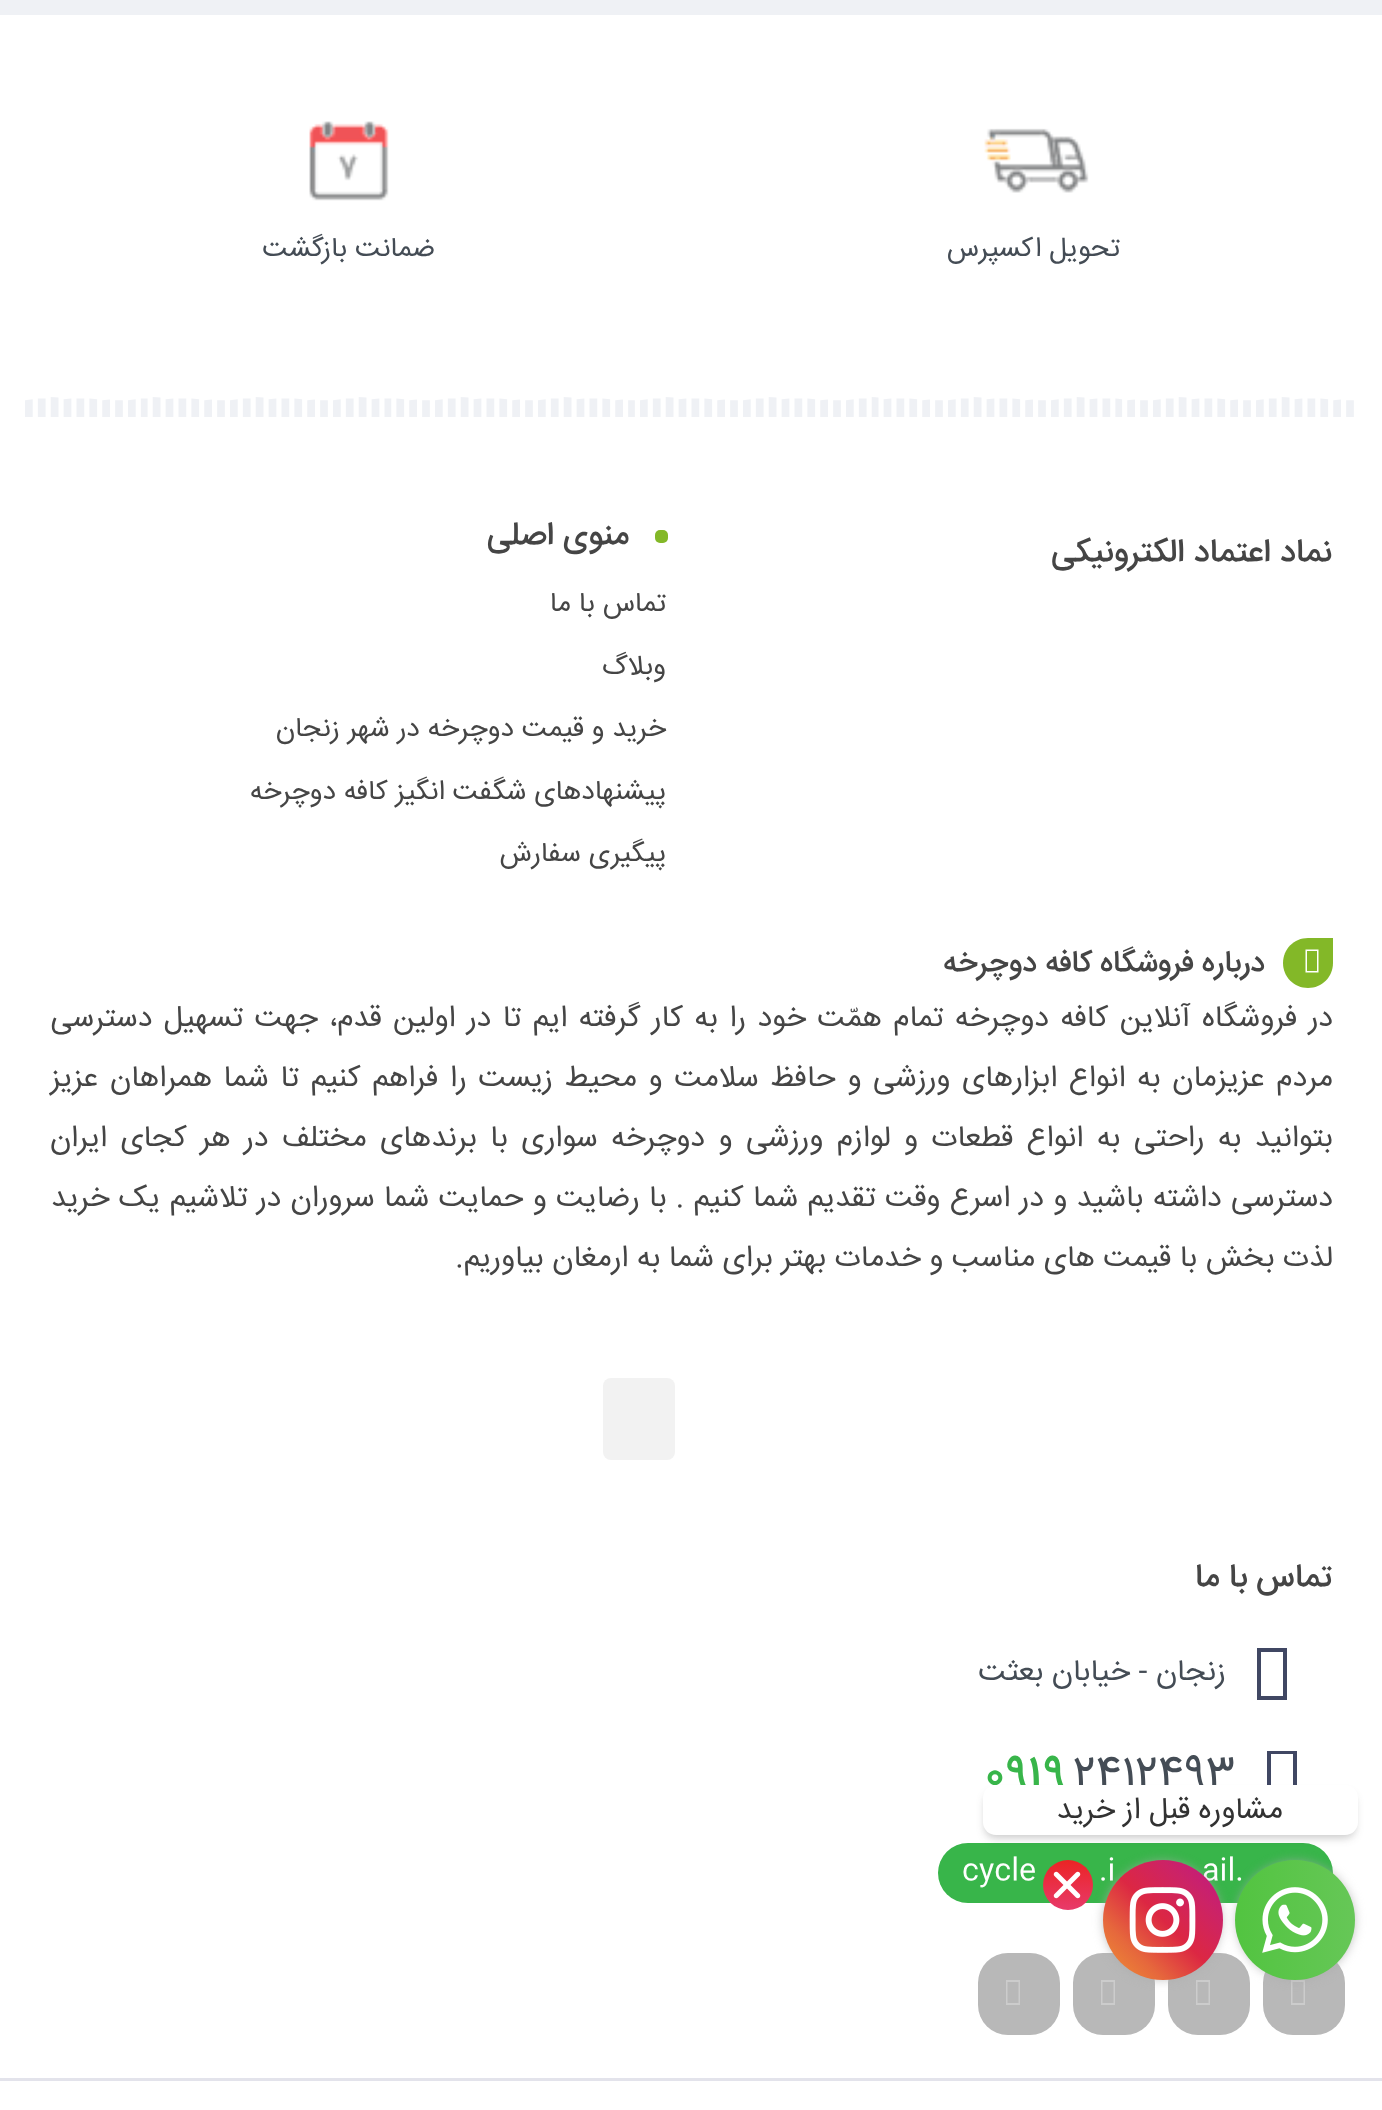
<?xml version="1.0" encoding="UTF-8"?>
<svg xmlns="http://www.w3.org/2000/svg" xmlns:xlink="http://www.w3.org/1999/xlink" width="1382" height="2110">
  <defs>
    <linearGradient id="g1" gradientUnits="userSpaceOnUse" x1="1355" y1="1920" x2="1235" y2="1920"><stop offset="0" stop-color="#66c757" /><stop offset="1" stop-color="#52c440" /></linearGradient>
    <linearGradient id="g2" gradientUnits="userSpaceOnUse" x1="1103" y1="1980" x2="1223" y2="1860"><stop offset="0" stop-color="#f09433" /><stop offset="0.25" stop-color="#e6683c" /><stop offset="0.5" stop-color="#dc2743" /><stop offset="0.75" stop-color="#cc2366" /><stop offset="1" stop-color="#bc1888" /></linearGradient>
    <linearGradient id="g3" gradientUnits="userSpaceOnUse" x1="1068" y1="1860" x2="1068" y2="1910"><stop offset="0" stop-color="#eb2424" /><stop offset="1" stop-color="#e83a6a" /></linearGradient>
  </defs>
  <rect width="100%" height="100%" fill="#eff1f5" />
  <rect y="15" width="1382" height="2063" fill="#ffffff" />
  <image x="984" y="128" width="105" height="65" xlink:href="image1.png" />
  <image x="309" y="121" width="80" height="80" xlink:href="image2.png" />
  <image x="25" y="397" width="1329" height="20" xlink:href="image3.png" />
  <rect x="655" y="530" width="13" height="13" rx="5" fill="#83b828" />
  <path d="M 1308 938 h 25 v 25 c 0 14 -11 25 -25 25 c -14 0 -25 -11 -25 -25 c 0 -14 11 -25 25 -25 z" fill="#83b828" />
  <path d="M 1305.5 972.5 v -23 h 13 v 23 z m 1.5 -1.5 h 10 v -20 h -10 z" fill="#ffffff" />
  <rect x="603" y="1378" width="72" height="82" rx="8" fill="#f2f2f2" />
  <path d="M 1257 1700 v -52 h 30 v 52 z m 4 -4 h 22 v -44 h -22 z" fill="#404763" />
  <path d="M 1267 1802 v -51 h 30 v 51 z m 4 -3 h 22 v -45 h -22 z" fill="#404763" />
  <rect x="938" y="1843" width="395" height="60" rx="30" fill="#38b54a" />
  <rect x="1263" y="1953" width="82" height="82" rx="30" fill="#b8b8b8" />
  <path d="M 1291 2005 v -25 h 14 v 25 z m 1.5 -2 h 11 v -21 h -11 z" fill="#cccccc" />
  <rect x="1168" y="1953" width="82" height="82" rx="30" fill="#b8b8b8" />
  <path d="M 1196 2005 v -25 h 14 v 25 z m 1.5 -2 h 11 v -21 h -11 z" fill="#cccccc" />
  <rect x="1073" y="1953" width="82" height="82" rx="30" fill="#b8b8b8" />
  <path d="M 1101 2005 v -25 h 14 v 25 z m 1.5 -2 h 11 v -21 h -11 z" fill="#cccccc" />
  <rect x="978" y="1953" width="82" height="82" rx="30" fill="#b8b8b8" />
  <path d="M 1006 2005 v -25 h 14 v 25 z m 1.5 -2 h 11 v -21 h -11 z" fill="#cccccc" />
  <rect y="2081" width="1382" height="29" fill="#ffffff" />
  <rect y="2078" width="1382" height="3" fill="#e3e3eb" />
  <rect x="985" y="1793" width="370" height="45" rx="10" fill="#2b2b2b" fill-opacity="0.25" filter="blur(4px)" />
  <rect x="1238" y="1863" width="115" height="115" rx="57.5" fill="#aaaaaa" filter="blur(6px)" />
  <text x="1120" y="256" style="font-family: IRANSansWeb; font-size: 27.5px; direction: rtl; fill: #444c55">تحویل اکسپرس</text>
  <text x="435" y="256" style="font-family: IRANSansWeb; font-size: 27.5px; direction: rtl; fill: #444c55">ضمانت بازگشت</text>
  <text x="1332" y="561" style="font-family: IRANSansWeb; font-size: 32.5px; font-weight: 500; direction: rtl; fill: #454545">نماد اعتماد الکترونیکی</text>
  <text x="629" y="544" style="font-family: IRANSansWeb; font-size: 32.5px; font-weight: 500; direction: rtl; fill: #454545">منوی اصلی</text>
  <text x="666" y="611" style="font-family: IRANSansWeb; font-size: 27.5px; direction: rtl; fill: #454545">تماس با ما</text>
  <text x="666" y="674" style="font-family: IRANSansWeb; font-size: 27.5px; direction: rtl; fill: #454545">وبلاگ</text>
  <text x="666" y="736" style="font-family: IRANSansWeb; font-size: 27.5px; direction: rtl; fill: #454545">خرید و قیمت دوچرخه در شهر زنجان</text>
  <text x="666" y="799" style="font-family: IRANSansWeb; font-size: 27.5px; direction: rtl; fill: #454545">پیشنهادهای شگفت انگیز کافه دوچرخه</text>
  <text x="666" y="861" style="font-family: IRANSansWeb; font-size: 27.5px; direction: rtl; fill: #454545">پیگیری سفارش</text>
  <text x="1265" y="971" style="font-family: IRANSansWeb; font-size: 30px; font-weight: 500; direction: rtl; fill: #454545">درباره فروشگاه کافه دوچرخه</text>
  <text x="1333" y="1026" word-spacing="2.9" style="font-family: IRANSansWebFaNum; font-size: 30px; direction: rtl; fill: #454545">در فروشگاه آنلاین کافه دوچرخه تمام همّت خود را به کار گرفته ایم تا در اولین قدم، جهت تسهیل دسترسی</text>
  <text x="1333" y="1086" word-spacing="3.1" style="font-family: IRANSansWebFaNum; font-size: 30px; direction: rtl; fill: #454545">مردم عزیزمان به انواع ابزارهای ورزشی و حافظ سلامت و محیط زیست را فراهم کنیم تا شما همراهان عزیز</text>
  <text x="1333" y="1146" word-spacing="4.9" style="font-family: IRANSansWebFaNum; font-size: 30px; direction: rtl; fill: #454545">بتوانید به راحتی به انواع قطعات و لوازم ورزشی و دوچرخه سواری با برندهای مختلف در هر کجای ایران</text>
  <text x="1333" y="1206" word-spacing="0.8" style="font-family: IRANSansWebFaNum; font-size: 30px; direction: rtl; fill: #454545">دسترسی داشته باشید و در اسرع وقت تقدیم شما کنیم . با رضایت و حمایت شما سروران در تلاشیم یک خرید</text>
  <text x="1333" y="1266" style="font-family: IRANSansWebFaNum; font-size: 30px; direction: rtl; fill: #454545">لذت بخش با قیمت های مناسب و خدمات بهتر برای شما به ارمغان بیاوریم.</text>
  <text x="1332" y="1586" style="font-family: IRANSansWeb; font-size: 32.5px; font-weight: 500; direction: rtl; fill: #454545">تماس با ما</text>
  <text x="1226" y="1680" style="font-family: IRANSansWebFaNum; font-size: 30px; direction: rtl; fill: #444c55">زنجان - خیابان بعثت</text>
  <text x="1073" y="1786" style="font-family: IRANSansWebFaNum; font-size: 42.5px; fill: #444c55">2412493</text>
  <text x="985" y="1786" style="font-family: IRANSansWebFaNum; font-size: 42.5px; font-weight: 500; fill: #38b54a">0919</text>
  <text x="1202" y="1879" style="font-family: IRANSansWebFaNum; font-size: 30px; fill: #ffffff">ail.</text>
  <text x="1099" y="1879" style="font-family: IRANSansWebFaNum; font-size: 30px; fill: #ffffff">.i</text>
  <text x="962" y="1879" style="font-family: IRANSansWebFaNum; font-size: 30px; fill: #ffffff">cycle</text>
  <rect x="983" y="1785" width="375" height="50" rx="13" fill="#ffffff" />
  <text x="1283" y="1818" style="font-family: IRANSansWeb; font-size: 30px; direction: rtl; fill: #323232">مشاوره قبل از خرید</text>
  <circle cx="1295" cy="1920" r="60" fill="url(#g1)" />
  <image x="1262" y="1887" width="66" height="66" xlink:href="image4.png" />
  <rect x="1105" y="1863" width="115" height="115" rx="57.5" fill="#aaaaaa" filter="blur(6px)" />
  <circle cx="1163" cy="1920" r="60" fill="url(#g2)" />
  <image x="1129" y="1887" width="67" height="66" xlink:href="image5.png" />
  <circle cx="1068" cy="1885" r="25" fill="url(#g3)" />
  <path d="M 1054.5 1894 l 21.5 -21.5 c 1 -1 2.5 -1 3.5 0 c 1 1 1 2.5 0 3.5 l -21.5 21.5 c -1 1 -2.5 1 -3.5 0 c -1 -1 -1 -2.5 0 -3.5 z" fill="#ffffff" />
  <path d="M 1058 1872.5 l 21.5 21.5 c 1 1 1 2.5 0 3.5 c -1 1 -2.5 1 -3.5 0 l -21.5 -21.5 c -1 -1 -1 -2.5 0 -3.5 c 1 -1 2.5 -1 3.5 0 z" fill="#ffffff" />
</svg>
